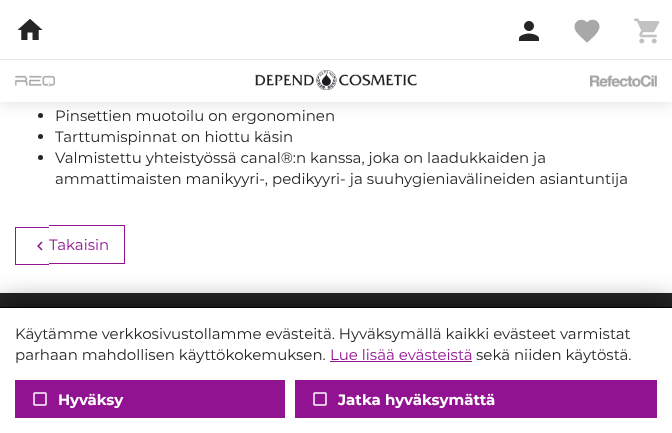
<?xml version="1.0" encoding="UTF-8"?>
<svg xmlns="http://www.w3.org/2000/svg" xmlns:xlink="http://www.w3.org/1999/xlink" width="672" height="433">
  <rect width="100%" height="100%" fill="#252525" />
  <rect y="102" width="672" height="191" fill="#ffffff" />
  <circle cx="40.5" cy="115.5" r="2.5" fill="#252525" />
  <rect y="5" width="672" height="100" fill="#000000" fill-opacity="0.1" filter="blur(7.5px)" />
  <rect width="672" height="59" fill="#ffffff" />
  <rect y="59" width="672" height="1" fill="#eaeaea" />
  <image x="17" y="18" width="26" height="22" xlink:href="image1.png" />
  <image x="518" y="21" width="21" height="20" xlink:href="image2.png" />
  <image x="574" y="19" width="26" height="24" xlink:href="image3.png" />
  <image x="634" y="18" width="26" height="26" xlink:href="image4.png" />
  <rect y="60" width="672" height="42" fill="#ffffff" />
  <image x="15" y="75" width="40" height="12" xlink:href="image5.png" />
  <image x="255" y="70" width="162" height="20" xlink:href="image6.png" />
  <image x="590" y="75" width="67" height="12" xlink:href="image7.png" />
  <circle cx="40.5" cy="136.5" r="2.5" fill="#252525" />
  <circle cx="40.5" cy="157.5" r="2.5" fill="#252525" />
  <rect x="15" y="227" width="34" height="1" fill="#921392" />
  <rect x="15" y="264" width="34" height="1" fill="#921392" />
  <rect x="15" y="227" width="1" height="38" fill="#921392" />
  <rect x="49" y="225" width="76" height="1" fill="#921392" />
  <rect x="124" y="225" width="1" height="39" fill="#921392" />
  <rect x="49" y="263" width="76" height="1" fill="#921392" />
  <image x="37" y="241" width="6" height="10" xlink:href="image8.png" />
  <rect y="307" width="672" height="126" fill="#000000" fill-opacity="0.7" filter="blur(15px)" />
  <rect y="308" width="672" height="125" fill="#ffffff" />
  <rect y="307" width="672" height="1" fill="#000000" />
  <rect x="330" y="361" width="142" height="1" fill="#921392" />
  <rect x="15" y="380" width="270" height="38" fill="#921392" />
  <image x="33" y="392" width="14" height="14" xlink:href="image9.png" />
  <rect x="295" y="380" width="362" height="38" fill="#921392" />
  <image x="313" y="392" width="14" height="14" xlink:href="image9.png" />
  <text x="55" y="121" style="font-family: Montserrat; font-size: 15px; fill: #252525">Pinsettien muotoilu on ergonominen</text>
  <text x="55" y="142" style="font-family: Montserrat; font-size: 15px; fill: #252525">Tarttumispinnat on hiottu käsin</text>
  <text x="55" y="163" style="font-family: Montserrat; font-size: 15px; fill: #252525">Valmistettu yhteistyössä canal®:n kanssa, joka on laadukkaiden ja</text>
  <text x="55" y="184" style="font-family: Montserrat; font-size: 15px; fill: #252525">ammattimaisten manikyyri-, pedikyyri- ja suuhygieniavälineiden asiantuntija</text>
  <text x="49" y="250" style="font-family: Montserrat; font-size: 15px; fill: #921392">Takaisin</text>
  <text x="15" y="339" style="font-family: Montserrat; font-size: 15px; fill: #252525">Käytämme verkkosivustollamme evästeitä. Hyväksymällä kaikki evästeet varmistat</text>
  <text x="15" y="360" style="font-family: Montserrat; font-size: 15px; fill: #252525">parhaan mahdollisen käyttökokemuksen.</text>
  <text x="330" y="360" style="font-family: Montserrat; font-size: 15px; fill: #921392">Lue lisää evästeistä</text>
  <text x="476" y="360" style="font-family: Montserrat; font-size: 15px; fill: #252525">sekä niiden käytöstä.</text>
  <text x="58" y="405" style="font-family: Montserrat; font-size: 15px; font-weight: bold; fill: #ffffff">Hyväksy</text>
  <text x="338" y="405" style="font-family: Montserrat; font-size: 15px; font-weight: bold; fill: #ffffff">Jatka hyväksymättä</text>
</svg>
